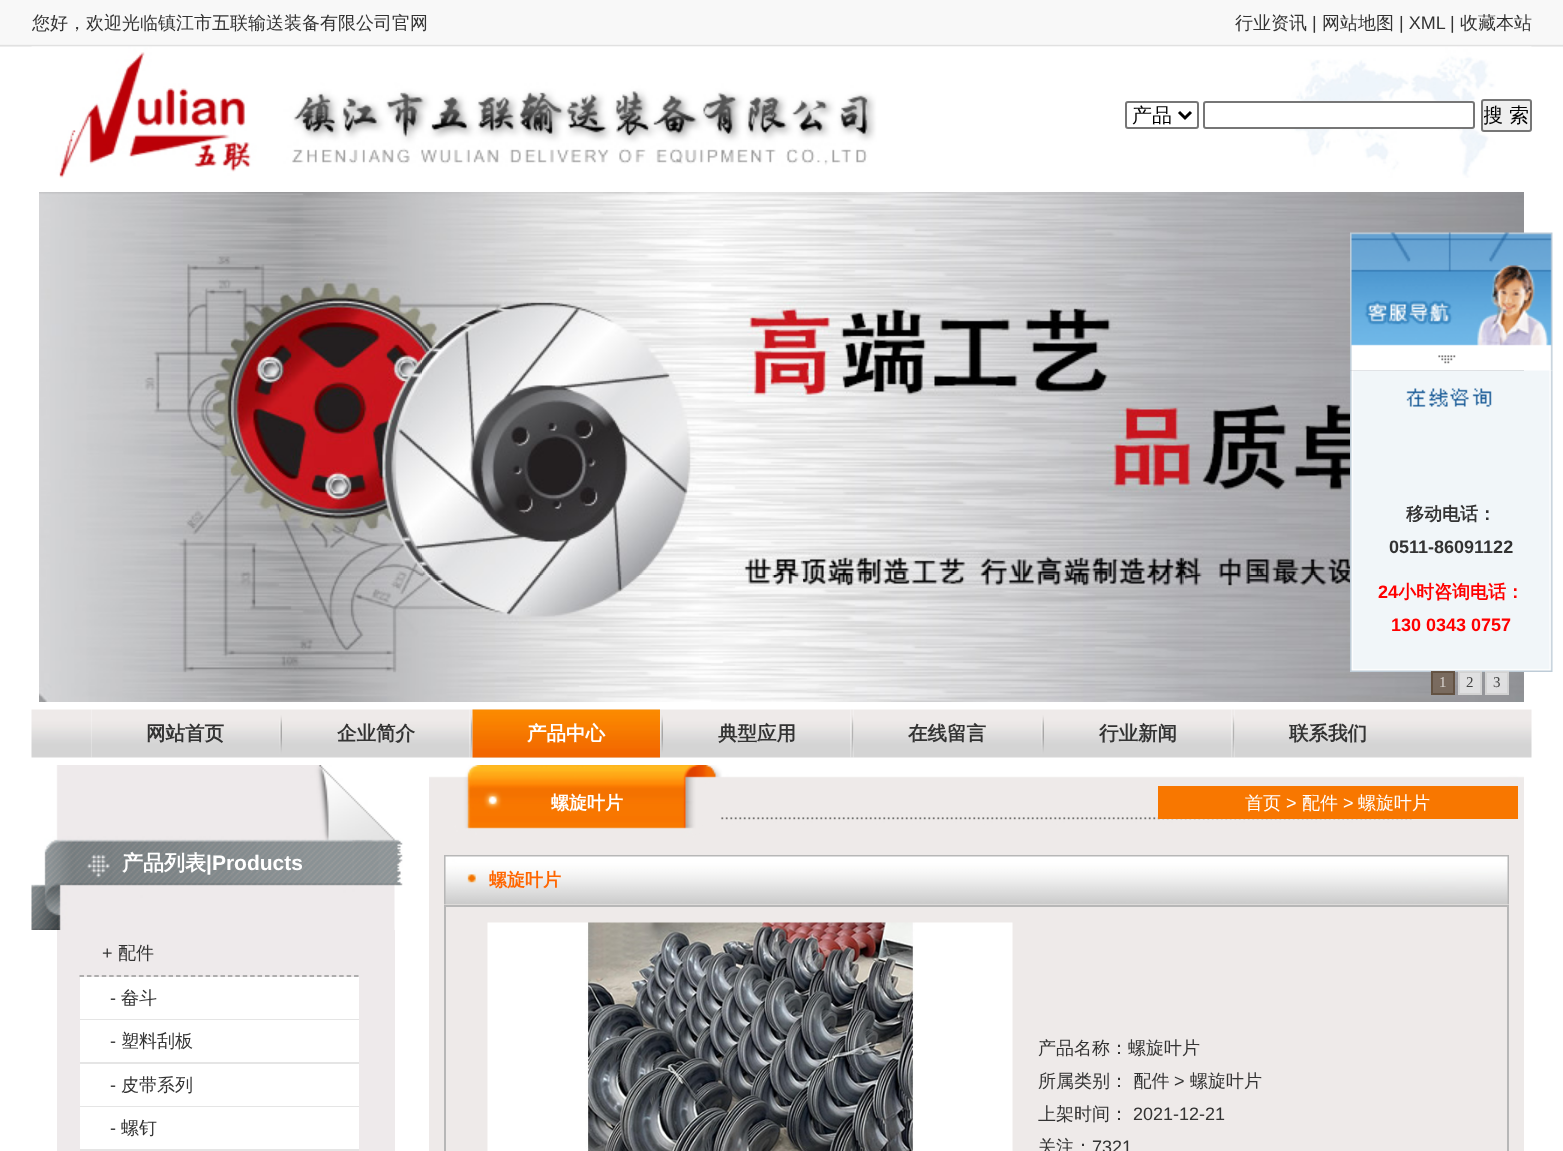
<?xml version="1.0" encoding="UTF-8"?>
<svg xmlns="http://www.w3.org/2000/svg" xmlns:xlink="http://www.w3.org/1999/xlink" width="1563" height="1151">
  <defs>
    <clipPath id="clip1"><rect x="1484" y="102" width="45" height="27" /></clipPath>
  </defs>
  <rect width="100%" height="100%" fill="#ffffff" />
  <image x="0" y="0" width="1563" height="47" xlink:href="image1.png" />
  <image x="31" y="46" width="1501" height="132" xlink:href="image2.png" />
  <rect x="1126" y="102" width="72" height="26" rx="2" fill="none" stroke="#767676" stroke-width="2" />
  <path d="M 1179 112 l 6 6 l 6 -6" fill="none" stroke="#000000" stroke-width="3" />
  <rect x="1204" y="102" width="270" height="26" rx="2" fill="#ffffff" stroke="#767676" stroke-width="2" />
  <rect x="1482" y="100" width="49" height="31" rx="2" fill="#efefef" stroke="#767676" stroke-width="2" />
  <image x="39" y="192" width="1485" height="510" xlink:href="image3.png" />
  <image x="1350" y="642" width="203" height="30" xlink:href="image18.png" />
  <rect x="1431" y="671" width="24" height="24" fill="#6c5744" fill-opacity="0.7" />
  <rect x="1432" y="672" width="22" height="22" fill="none" stroke="#5a4736" stroke-opacity="0.7" stroke-width="2" />
  <rect x="1458" y="671" width="24" height="24" fill="#ffffff" fill-opacity="0.7" />
  <rect x="1459" y="672" width="22" height="22" fill="none" stroke="#cccccc" stroke-opacity="0.7" stroke-width="2" />
  <rect x="1485" y="671" width="24" height="24" fill="#ffffff" fill-opacity="0.7" />
  <rect x="1486" y="672" width="22" height="22" fill="none" stroke="#cccccc" stroke-opacity="0.7" stroke-width="2" />
  <image x="31" y="709" width="61" height="49" xlink:href="image4.png" />
  <image x="91" y="709" width="188" height="49" xlink:href="image5.png" />
  <image x="279" y="709" width="3" height="49" xlink:href="image6.png" />
  <image x="282" y="709" width="188" height="49" xlink:href="image7.png" />
  <image x="469" y="709" width="4" height="49" xlink:href="image8.png" />
  <image x="472" y="709" width="188" height="49" xlink:href="image9.png" />
  <image x="472" y="709" width="188" height="49" xlink:href="image10.png" />
  <image x="660" y="709" width="3" height="49" xlink:href="image11.png" />
  <image x="663" y="709" width="188" height="49" xlink:href="image7.png" />
  <image x="850" y="709" width="4" height="49" xlink:href="image8.png" />
  <image x="853" y="709" width="188" height="49" xlink:href="image9.png" />
  <image x="1041" y="709" width="3" height="49" xlink:href="image6.png" />
  <image x="1044" y="709" width="188" height="49" xlink:href="image7.png" />
  <image x="1231" y="709" width="4" height="49" xlink:href="image8.png" />
  <image x="1234" y="709" width="188" height="49" xlink:href="image9.png" />
  <image x="1422" y="709" width="110" height="49" xlink:href="image12.png" />
  <image x="1350" y="232" width="203" height="139" xlink:href="image13.png" />
  <image x="1350" y="370" width="203" height="56" xlink:href="image14.png" />
  <image x="1350" y="426" width="203" height="60" xlink:href="image15.png" />
  <image x="1350" y="486" width="203" height="90" xlink:href="image16.png" />
  <image x="1350" y="576" width="203" height="66" xlink:href="image17.png" />
  <image x="31" y="765" width="372" height="165" xlink:href="image19.png" />
  <rect x="57" y="930" width="338" height="221" fill="#eeeaeb" />
  <path d="M 79.5 976 h 279" fill="none" stroke="#999999" stroke-width="1.5" stroke-dasharray="4.5 2.92" />
  <rect x="80" y="977" width="279" height="42" fill="#ffffff" />
  <rect x="80" y="1019" width="279" height="1" fill="#e5e5e5" />
  <rect x="80" y="1020" width="279" height="42" fill="#ffffff" />
  <rect x="80" y="1062" width="279" height="2" fill="#e5e5e5" />
  <rect x="80" y="1064" width="279" height="42" fill="#ffffff" />
  <rect x="80" y="1106" width="279" height="1" fill="#e5e5e5" />
  <rect x="80" y="1107" width="279" height="42" fill="#ffffff" />
  <rect x="80" y="1149" width="279" height="2" fill="#e5e5e5" />
  <image x="429" y="765" width="1095" height="75" xlink:href="image20.png" />
  <rect x="1158" y="786" width="360" height="33" fill="#f87700" />
  <rect x="429" y="840" width="1095" height="311" fill="#eeeae9" />
  <image x="444" y="855" width="1065" height="50" xlink:href="image21.png" />
  <rect x="445" y="906" width="1063" height="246" fill="none" stroke="#b7b7b7" stroke-width="2" />
  <image x="487" y="922" width="526" height="229" xlink:href="image22.png" />
  <text x="32" y="29" style="font-family: WenQuanYi Zen Hei; font-size: 18px; font-weight: 500; fill: #333333">您好，欢迎光临镇江市五联输送装备有限公司官网</text>
  <text x="1235" y="29" style="font-family: WenQuanYi Zen Hei; font-size: 18px; font-weight: 500; fill: #333333">行业资讯</text>
  <text x="1312" y="29" style="font-family: Liberation Sans; font-size: 18px; fill: #333333">|</text>
  <text x="1322" y="29" style="font-family: WenQuanYi Zen Hei; font-size: 18px; font-weight: 500; fill: #333333">网站地图</text>
  <text x="1399" y="29" style="font-family: Liberation Sans; font-size: 18px; fill: #333333">| XML</text>
  <text x="1450" y="29" style="font-family: Liberation Sans; font-size: 18px; fill: #333333">|</text>
  <text x="1460" y="29" style="font-family: WenQuanYi Zen Hei; font-size: 18px; font-weight: 500; fill: #333333">收藏本站</text>
  <text x="1132" y="122" style="font-family: WenQuanYi Zen Hei; font-size: 20px; font-weight: 500; fill: #000000">产品</text>
  <g clip-path="url(#clip1)">
    <text x="1483" y="122" style="font-family: WenQuanYi Zen Hei; font-size: 20px; font-weight: 500; fill: #000000">搜 索</text>
  </g>
  <text x="1439" y="687" style="font-family: Liberation Serif; font-size: 15px; fill: #d7d3cf">1</text>
  <text x="1466" y="687" style="font-family: Liberation Serif; font-size: 15px; fill: #434343">2</text>
  <text x="1493" y="687" style="font-family: Liberation Serif; font-size: 15px; fill: #434343">3</text>
  <text x="146" y="740" style="font-family: WenQuanYi Zen Hei; font-size: 19.5px; font-weight: bold; fill: #333333">网站首页</text>
  <text x="337" y="740" style="font-family: WenQuanYi Zen Hei; font-size: 19.5px; font-weight: bold; fill: #333333">企业简介</text>
  <text x="527" y="740" style="font-family: WenQuanYi Zen Hei; font-size: 19.5px; font-weight: bold; fill: #ffffff">产品中心</text>
  <text x="718" y="740" style="font-family: WenQuanYi Zen Hei; font-size: 19.5px; font-weight: bold; fill: #333333">典型应用</text>
  <text x="908" y="740" style="font-family: WenQuanYi Zen Hei; font-size: 19.5px; font-weight: bold; fill: #333333">在线留言</text>
  <text x="1099" y="740" style="font-family: WenQuanYi Zen Hei; font-size: 19.5px; font-weight: bold; fill: #333333">行业新闻</text>
  <text x="1289" y="740" style="font-family: WenQuanYi Zen Hei; font-size: 19.5px; font-weight: bold; fill: #333333">联系我们</text>
  <text x="1406" y="520" style="font-family: WenQuanYi Zen Hei; font-size: 18px; font-weight: bold; fill: #333333">移动电话：</text>
  <text x="1389" y="553" style="font-family: Liberation Sans; font-size: 18px; font-weight: bold; fill: #333333">0511-86091122</text>
  <text x="1378" y="598" style="font-family: Liberation Sans; font-size: 18px; font-weight: bold; fill: #ff0000">24</text>
  <text x="1398" y="598" style="font-family: WenQuanYi Zen Hei; font-size: 18px; font-weight: bold; fill: #ff0000">小时咨询电话：</text>
  <text x="1391" y="631" style="font-family: Liberation Sans; font-size: 18px; font-weight: bold; fill: #ff0000">130 0343 0757</text>
  <text x="122" y="870" style="font-family: WenQuanYi Zen Hei; font-size: 21px; font-weight: bold; fill: #ffffff">产品列表</text>
  <text x="206" y="870" style="font-family: Liberation Sans; font-size: 21px; font-weight: bold; fill: #ffffff">|Products</text>
  <text x="102" y="959" style="font-family: Liberation Sans; font-size: 18px; fill: #333333">+</text>
  <text x="118" y="959" style="font-family: WenQuanYi Zen Hei; font-size: 18px; font-weight: 500; fill: #333333">配件</text>
  <text x="110" y="1004" style="font-family: Liberation Sans; font-size: 18px; fill: #333333">-</text>
  <text x="121" y="1004" style="font-family: WenQuanYi Zen Hei; font-size: 18px; font-weight: 500; fill: #333333">畚斗</text>
  <text x="110" y="1047" style="font-family: Liberation Sans; font-size: 18px; fill: #333333">-</text>
  <text x="121" y="1047" style="font-family: WenQuanYi Zen Hei; font-size: 18px; font-weight: 500; fill: #333333">塑料刮板</text>
  <text x="110" y="1091" style="font-family: Liberation Sans; font-size: 18px; fill: #333333">-</text>
  <text x="121" y="1091" style="font-family: WenQuanYi Zen Hei; font-size: 18px; font-weight: 500; fill: #333333">皮带系列</text>
  <text x="110" y="1134" style="font-family: Liberation Sans; font-size: 18px; fill: #333333">-</text>
  <text x="121" y="1134" style="font-family: WenQuanYi Zen Hei; font-size: 18px; font-weight: 500; fill: #333333">螺钉</text>
  <text x="551" y="809" style="font-family: WenQuanYi Zen Hei; font-size: 18px; font-weight: bold; fill: #ffffff">螺旋叶片</text>
  <text x="1245" y="809" style="font-family: WenQuanYi Zen Hei; font-size: 18px; font-weight: 500; fill: #ffffff">首页</text>
  <text x="1286" y="809" style="font-family: Liberation Sans; font-size: 18px; fill: #ffffff">&gt;</text>
  <text x="1302" y="809" style="font-family: WenQuanYi Zen Hei; font-size: 18px; font-weight: 500; fill: #ffffff">配件</text>
  <text x="1343" y="809" style="font-family: Liberation Sans; font-size: 18px; fill: #ffffff">&gt;</text>
  <text x="1358" y="809" style="font-family: WenQuanYi Zen Hei; font-size: 18px; font-weight: 500; fill: #ffffff">螺旋叶片</text>
  <text x="489" y="886" style="font-family: WenQuanYi Zen Hei; font-size: 18px; font-weight: bold; fill: #ff6600">螺旋叶片</text>
  <text x="1038" y="1054" style="font-family: WenQuanYi Zen Hei; font-size: 18px; font-weight: 500; fill: #333333">产品名称：螺旋叶片</text>
  <text x="1038" y="1087" style="font-family: WenQuanYi Zen Hei; font-size: 18px; font-weight: 500; fill: #333333">所属类别： 配件</text>
  <text x="1174" y="1087" style="font-family: Liberation Sans; font-size: 18px; fill: #333333">&gt;</text>
  <text x="1190" y="1087" style="font-family: WenQuanYi Zen Hei; font-size: 18px; font-weight: 500; fill: #333333">螺旋叶片</text>
  <text x="1038" y="1120" style="font-family: WenQuanYi Zen Hei; font-size: 18px; font-weight: 500; fill: #333333">上架时间：</text>
  <text x="1133" y="1120" style="font-family: Liberation Sans; font-size: 18px; fill: #333333">2021-12-21</text>
  <text x="1038" y="1153" style="font-family: WenQuanYi Zen Hei; font-size: 18px; font-weight: 500; fill: #333333">关注：</text>
  <text x="1092" y="1153" style="font-family: Liberation Sans; font-size: 18px; fill: #333333">7321</text>
</svg>
